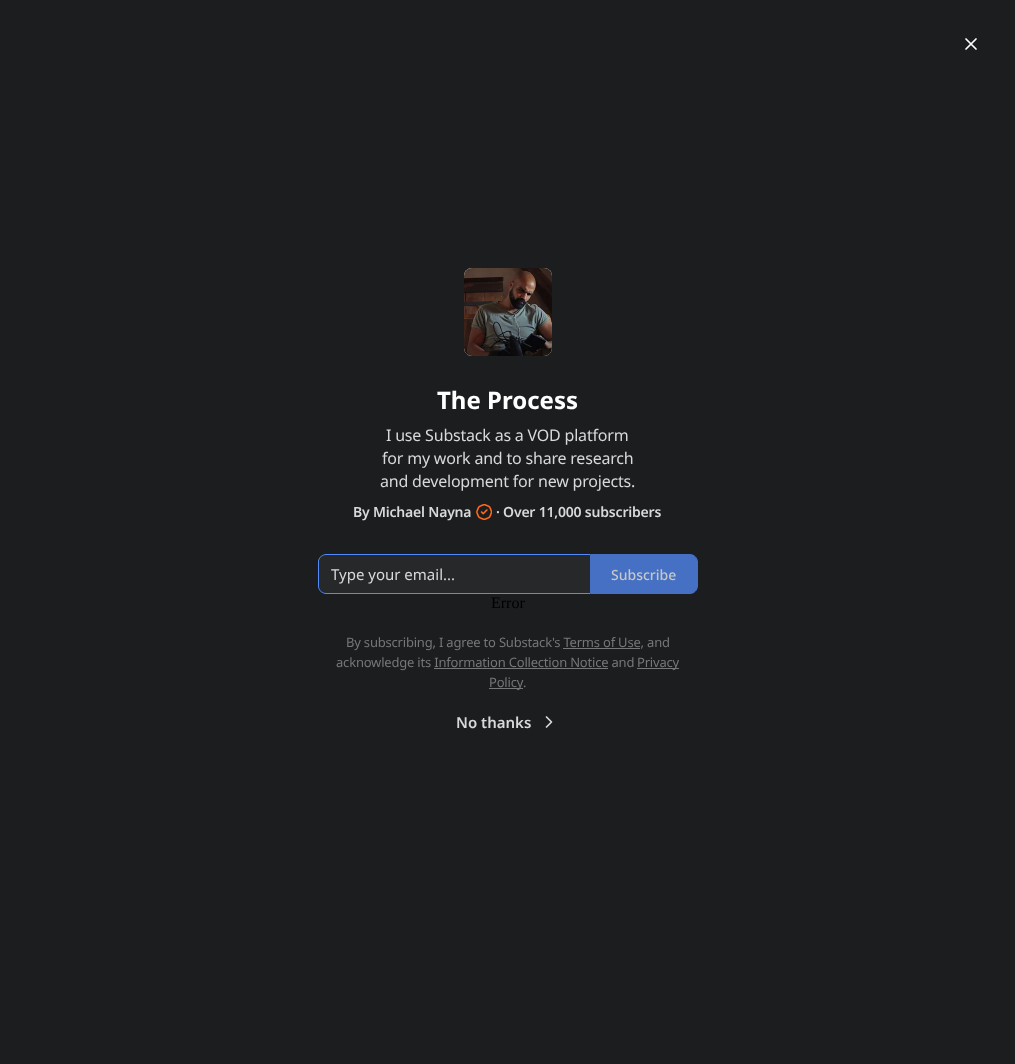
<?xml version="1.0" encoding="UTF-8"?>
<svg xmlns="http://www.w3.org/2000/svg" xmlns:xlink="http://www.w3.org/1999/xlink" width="1015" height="1064">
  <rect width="100%" height="100%" fill="#1c1d1f" />
  <path d="M 976 39 l -10 10 m 0 -10 l 10 10" fill="none" stroke="#ffffff" stroke-width="1.7" stroke-linecap="round" stroke-linejoin="round" />
  <rect x="464" y="268" width="88" height="88" rx="8" fill="#ffffff" />
  <image x="464" y="268" width="88" height="88" xlink:href="image1.png" />
  <image x="476" y="504" width="16" height="16" xlink:href="image2.png" />
  <path d="M 326 555 h 264 v 38 h -264 c -4 0 -7 -3 -7 -7 v -24 c 0 -4 3 -7 7 -7 z" fill="#27282a" />
  <path d="M 326 554 h 264 v 40 h -264 c -4 0 -8 -4 -8 -8 v -24 c 0 -4 4 -8 8 -8 z m 0 1 h 264 v 38 h -264 c -4 0 -7 -3 -7 -7 v -24 c 0 -4 3 -7 7 -7 z" fill="#538cfa" fill-rule="evenodd" />
  <path d="M 590.5 554.5 h 99.5 c 4 0 7.5 3.5 7.5 7.5 v 24 c 0 4 -3.5 7.5 -7.5 7.5 h -99.5 z" fill="#4570c3" stroke="#4570c3" />
  <rect x="563" y="648" width="77" height="1" fill="#777777" />
  <rect x="637" y="668" width="42" height="1" fill="#777777" />
  <rect x="434" y="668" width="174" height="1" fill="#777777" />
  <rect x="489" y="688" width="34" height="1" fill="#777777" />
  <path d="M 546.5 727 l 5 -5 l -5 -5" fill="none" stroke="#d9d9d9" stroke-width="1.7" stroke-linecap="round" stroke-linejoin="round" />
  <text x="437" y="409" style="font-family: Noto Sans; font-size: 24px; font-weight: bold; fill: #ffffff">The Process</text>
  <text x="386" y="441" style="font-family: Noto Sans; font-size: 16px; letter-spacing: -0.2px; fill: #d9d9d9">I use Substack as a VOD platform</text>
  <text x="382" y="464" style="font-family: Noto Sans; font-size: 16px; letter-spacing: -0.2px; fill: #d9d9d9">for my work and to share research</text>
  <text x="380" y="487" style="font-family: Noto Sans; font-size: 16px; letter-spacing: -0.2px; fill: #d9d9d9">and development for new projects.</text>
  <text x="353" y="517" style="font-family: Noto Sans; font-size: 14px; font-weight: 600; letter-spacing: -0.2px; fill: #d9d9d9">By Michael Nayna</text>
  <text x="496" y="517" style="font-family: Noto Sans; font-size: 14px; font-weight: 600; letter-spacing: -0.2px; fill: #d9d9d9">· Over 11,000 subscribers</text>
  <text x="331" y="580" style="font-family: Noto Sans; font-size: 15px; fill: #d9d9d9">Type your email...</text>
  <text x="611" y="580" style="font-family: Noto Sans; font-size: 14px; font-weight: 500; fill: #c6c7c7">Subscribe</text>
  <text x="491" y="608" style="font-family: Liberation Serif; font-size: 16px; fill: #000000">Error</text>
  <text x="346" y="647" style="font-family: Noto Sans; font-size: 13px; letter-spacing: -0.2px; fill: #777777">By subscribing, I agree to Substack's Terms of Use, and</text>
  <text x="336" y="667" style="font-family: Noto Sans; font-size: 13px; letter-spacing: -0.2px; fill: #777777">acknowledge its Information Collection Notice and</text>
  <text x="637" y="667" style="font-family: Noto Sans; font-size: 13px; letter-spacing: -0.2px; fill: #777777">Privacy</text>
  <text x="489" y="687" style="font-family: Noto Sans; font-size: 13px; letter-spacing: -0.2px; fill: #777777">Policy</text>
  <text x="523" y="687" style="font-family: Noto Sans; font-size: 13px; letter-spacing: -0.2px; fill: #777777">.</text>
  <text x="456" y="728" style="font-family: Noto Sans; font-size: 15px; font-weight: 600; fill: #d9d9d9">No thanks</text>
</svg>
